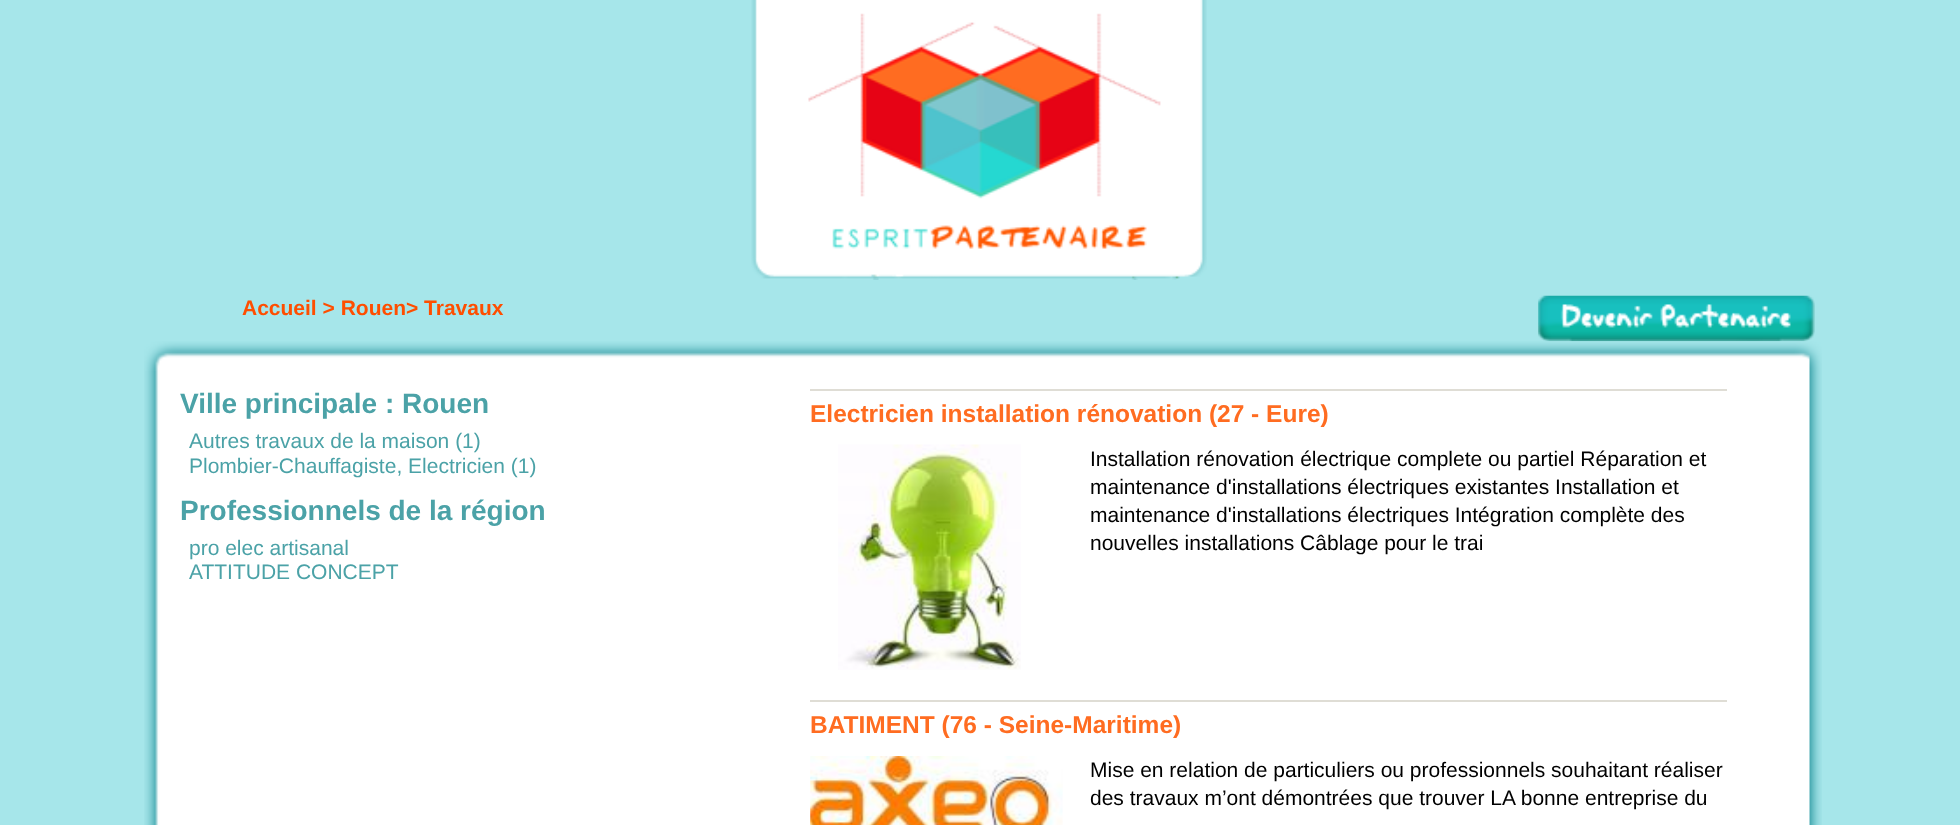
<?xml version="1.0" encoding="UTF-8"?>
<svg xmlns="http://www.w3.org/2000/svg" xmlns:xlink="http://www.w3.org/1999/xlink" width="1960" height="825">
  <rect width="100%" height="100%" fill="#a6e6ea" />
  <image x="751" y="0" width="456" height="280" xlink:href="image1.png" />
  <image x="1538" y="295" width="277" height="47" xlink:href="image2.png" />
  <image x="144" y="341" width="1678" height="30" xlink:href="image3.png" />
  <image x="144" y="371" width="1678" height="454" xlink:href="image4.png" />
  <rect x="810" y="389" width="917" height="2" fill="#dfddd5" />
  <image x="838" y="444" width="183" height="226" xlink:href="image5.png" />
  <rect x="810" y="700" width="917" height="2" fill="#dfddd5" />
  <image x="810" y="756" width="253" height="69" xlink:href="image6.png" />
  <text x="242" y="315" style="font-family: Liberation Sans; font-size: 21px; font-weight: bold; fill: #ff4e00">Accueil &gt; Rouen&gt; Travaux</text>
  <text x="180" y="413" style="font-family: Liberation Sans; font-size: 28px; font-weight: bold; fill: #4ba2a7">Ville principale : Rouen</text>
  <text x="189" y="448" style="font-family: Liberation Sans; font-size: 21px; fill: #4ba2a7">Autres travaux de la maison (1)</text>
  <text x="189" y="473" style="font-family: Liberation Sans; font-size: 21px; fill: #4ba2a7">Plombier-Chauffagiste, Electricien (1)</text>
  <text x="180" y="520" style="font-family: Liberation Sans; font-size: 28px; font-weight: bold; fill: #4ba2a7">Professionnels de la région</text>
  <text x="189" y="555" style="font-family: Liberation Sans; font-size: 21px; fill: #4ba2a7">pro elec artisanal</text>
  <text x="189" y="579" style="font-family: Liberation Sans; font-size: 21px; fill: #4ba2a7">ATTITUDE CONCEPT</text>
  <text x="810" y="422" style="font-family: Liberation Sans; font-size: 24.5px; font-weight: bold; fill: #ff6c21">Electricien installation rénovation (27 - Eure)</text>
  <text x="1090" y="466" style="font-family: Liberation Sans; font-size: 21px; fill: #000000">Installation rénovation électrique complete ou partiel Réparation et</text>
  <text x="1090" y="494" style="font-family: Liberation Sans; font-size: 21px; fill: #000000">maintenance d'installations électriques existantes Installation et</text>
  <text x="1090" y="522" style="font-family: Liberation Sans; font-size: 21px; fill: #000000">maintenance d'installations électriques Intégration complète des</text>
  <text x="1090" y="550" style="font-family: Liberation Sans; font-size: 21px; fill: #000000">nouvelles installations Câblage pour le trai</text>
  <text x="810" y="733" style="font-family: Liberation Sans; font-size: 24.5px; font-weight: bold; fill: #ff6c21">BATIMENT (76 - Seine-Maritime)</text>
  <text x="1090" y="777" style="font-family: Liberation Sans; font-size: 21px; fill: #000000">Mise en relation de particuliers ou professionnels souhaitant réaliser</text>
  <text x="1090" y="805" style="font-family: Liberation Sans; font-size: 21px; fill: #000000">des travaux m’ont démontrées que trouver LA bonne entreprise du</text>
</svg>
